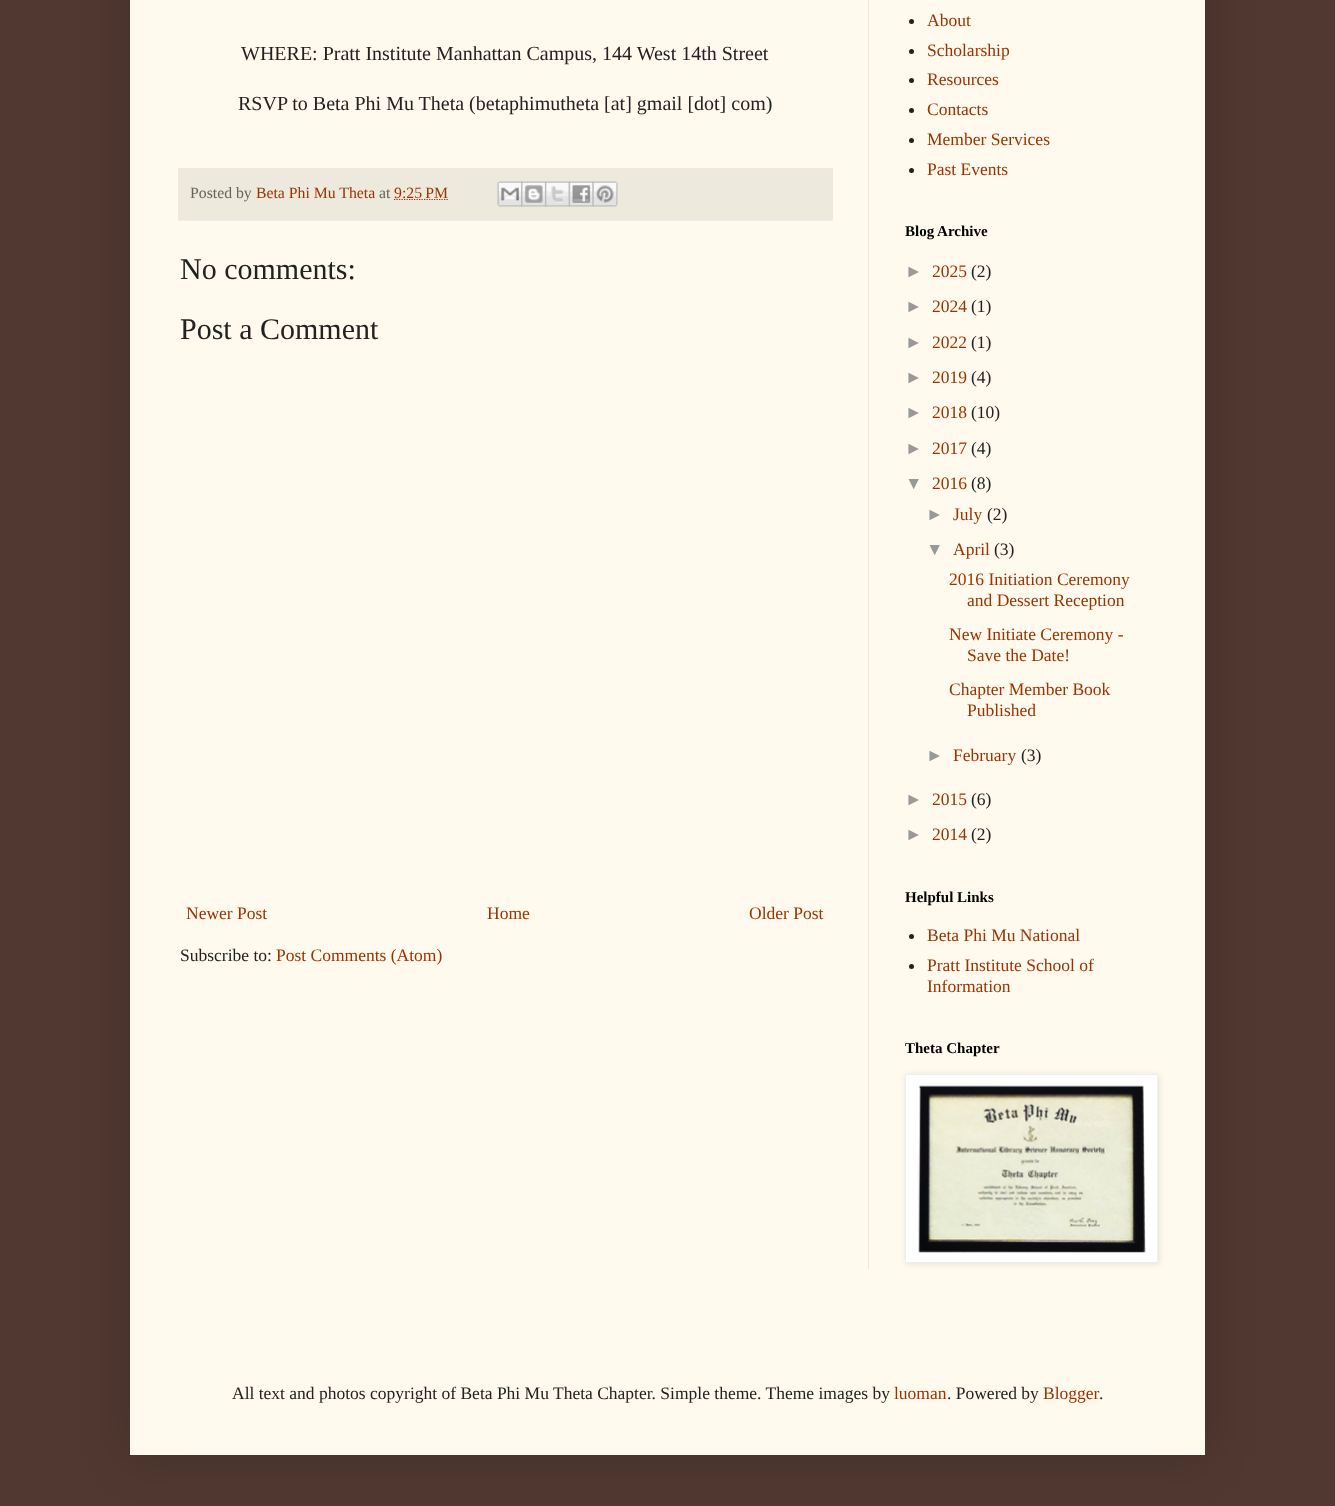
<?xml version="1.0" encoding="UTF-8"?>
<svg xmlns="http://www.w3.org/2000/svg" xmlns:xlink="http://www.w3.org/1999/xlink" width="1335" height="1506">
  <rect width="100%" height="100%" fill="#513831" />
  <rect x="130" y="-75" width="1075" height="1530" fill="#000000" fill-opacity="0.15" filter="blur(25px)" />
  <rect x="130" width="1075" height="1455" fill="#fff9ee" />
  <rect x="868" width="1" height="1269" fill="#eee5dd" />
  <rect x="178" y="168" width="655" height="52" fill="#eee9dd" />
  <rect x="178" y="220" width="655" height="1" fill="#eeeeee" />
  <path d="M 394 199.5 h 54" fill="none" stroke="#993300" stroke-width="1.2" stroke-dasharray="1.25 1.25" />
  <image x="497" y="181" width="26" height="26" xlink:href="image1.png" />
  <image x="521" y="181" width="26" height="26" xlink:href="image2.png" />
  <image x="545" y="181" width="25" height="26" xlink:href="image3.png" />
  <image x="568" y="181" width="26" height="26" xlink:href="image4.png" />
  <image x="592" y="181" width="26" height="26" xlink:href="image5.png" />
  <circle cx="911.5" cy="21.5" r="2.5" fill="#222222" />
  <circle cx="911.5" cy="51.5" r="2.5" fill="#222222" />
  <circle cx="911.5" cy="80.5" r="2.5" fill="#222222" />
  <circle cx="911.5" cy="110.5" r="2.5" fill="#222222" />
  <circle cx="911.5" cy="140.5" r="2.5" fill="#222222" />
  <circle cx="911.5" cy="170.5" r="2.5" fill="#222222" />
  <circle cx="911.5" cy="936.5" r="2.5" fill="#222222" />
  <circle cx="911.5" cy="966.5" r="2.5" fill="#222222" />
  <rect x="906" y="1075" width="253" height="189" fill="#000000" fill-opacity="0.1" filter="blur(3px)" />
  <rect x="905.5" y="1074.5" width="252" height="188" fill="#ffffff" stroke="#eeeeee" />
  <image x="918" y="1085" width="228" height="168" xlink:href="image6.png" />
  <text x="241" y="60" style="font-family: Liberation Serif; font-size: 20px; fill: #222222">WHERE: Pratt Institute Manhattan Campus, 144 West 14th Street</text>
  <text x="238" y="110" style="font-family: Liberation Serif; font-size: 20px; fill: #222222">RSVP to Beta Phi Mu Theta (betaphimutheta [at] gmail [dot] com)</text>
  <text x="190" y="198" style="font-family: Liberation Serif; font-size: 15.75px; fill: #666555">Posted by</text>
  <text x="256" y="198" style="font-family: Liberation Serif; font-size: 15.75px; fill: #993300">Beta Phi Mu Theta</text>
  <text x="379" y="198" style="font-family: Liberation Serif; font-size: 15.75px; fill: #666555">at</text>
  <text x="394" y="198" style="font-family: Liberation Serif; font-size: 15.75px; fill: #993300">9:25 PM</text>
  <text x="180" y="279" style="font-family: Liberation Serif; font-size: 30px; fill: #222222">No comments:</text>
  <text x="180" y="339" style="font-family: Liberation Serif; font-size: 30px; fill: #222222">Post a Comment</text>
  <text x="186" y="919" style="font-family: Liberation Serif; font-size: 17.5px; fill: #993300">Newer Post</text>
  <text x="487" y="919" style="font-family: Liberation Serif; font-size: 17.5px; fill: #993300">Home</text>
  <text x="749" y="919" style="font-family: Liberation Serif; font-size: 17.5px; fill: #993300">Older Post</text>
  <text x="180" y="961" style="font-family: Liberation Serif; font-size: 17.5px; fill: #222222">Subscribe to:</text>
  <text x="276" y="961" style="font-family: Liberation Serif; font-size: 17.5px; fill: #993300">Post Comments (Atom)</text>
  <text x="927" y="26" style="font-family: Liberation Serif; font-size: 17.5px; fill: #993300">About</text>
  <text x="927" y="56" style="font-family: Liberation Serif; font-size: 17.5px; fill: #993300">Scholarship</text>
  <text x="927" y="85" style="font-family: Liberation Serif; font-size: 17.5px; fill: #993300">Resources</text>
  <text x="927" y="115" style="font-family: Liberation Serif; font-size: 17.5px; fill: #993300">Contacts</text>
  <text x="927" y="145" style="font-family: Liberation Serif; font-size: 17.5px; fill: #993300">Member Services</text>
  <text x="927" y="175" style="font-family: Liberation Serif; font-size: 17.5px; fill: #993300">Past Events</text>
  <text x="905" y="236" style="font-family: Liberation Serif; font-size: 15px; font-weight: bold; fill: #000000">Blog Archive</text>
  <text x="905" y="277" style="font-family: Liberation Sans; font-size: 17.5px; fill: #999999">►</text>
  <text x="932" y="277" style="font-family: Liberation Serif; font-size: 17.5px; fill: #993300">2025</text>
  <text x="971" y="277" style="font-family: Liberation Serif; font-size: 17.5px; fill: #222222">(2)</text>
  <text x="905" y="312" style="font-family: Liberation Sans; font-size: 17.5px; fill: #999999">►</text>
  <text x="932" y="312" style="font-family: Liberation Serif; font-size: 17.5px; fill: #993300">2024</text>
  <text x="971" y="312" style="font-family: Liberation Serif; font-size: 17.5px; fill: #222222">(1)</text>
  <text x="905" y="348" style="font-family: Liberation Sans; font-size: 17.5px; fill: #999999">►</text>
  <text x="932" y="348" style="font-family: Liberation Serif; font-size: 17.5px; fill: #993300">2022</text>
  <text x="971" y="348" style="font-family: Liberation Serif; font-size: 17.5px; fill: #222222">(1)</text>
  <text x="905" y="383" style="font-family: Liberation Sans; font-size: 17.5px; fill: #999999">►</text>
  <text x="932" y="383" style="font-family: Liberation Serif; font-size: 17.5px; fill: #993300">2019</text>
  <text x="971" y="383" style="font-family: Liberation Serif; font-size: 17.5px; fill: #222222">(4)</text>
  <text x="905" y="418" style="font-family: Liberation Sans; font-size: 17.5px; fill: #999999">►</text>
  <text x="932" y="418" style="font-family: Liberation Serif; font-size: 17.5px; fill: #993300">2018</text>
  <text x="971" y="418" style="font-family: Liberation Serif; font-size: 17.5px; fill: #222222">(10)</text>
  <text x="905" y="454" style="font-family: Liberation Sans; font-size: 17.5px; fill: #999999">►</text>
  <text x="932" y="454" style="font-family: Liberation Serif; font-size: 17.5px; fill: #993300">2017</text>
  <text x="971" y="454" style="font-family: Liberation Serif; font-size: 17.5px; fill: #222222">(4)</text>
  <text x="905" y="489" style="font-family: Liberation Sans; font-size: 17.5px; fill: #999999">▼</text>
  <text x="932" y="489" style="font-family: Liberation Serif; font-size: 17.5px; fill: #993300">2016</text>
  <text x="971" y="489" style="font-family: Liberation Serif; font-size: 17.5px; fill: #222222">(8)</text>
  <text x="926" y="520" style="font-family: Liberation Sans; font-size: 17.5px; fill: #999999">►</text>
  <text x="953" y="520" style="font-family: Liberation Serif; font-size: 17.5px; fill: #993300">July</text>
  <text x="987" y="520" style="font-family: Liberation Serif; font-size: 17.5px; fill: #222222">(2)</text>
  <text x="926" y="555" style="font-family: Liberation Sans; font-size: 17.5px; fill: #999999">▼</text>
  <text x="953" y="555" style="font-family: Liberation Serif; font-size: 17.5px; fill: #993300">April</text>
  <text x="994" y="555" style="font-family: Liberation Serif; font-size: 17.5px; fill: #222222">(3)</text>
  <text x="949" y="585" style="font-family: Liberation Serif; font-size: 17.5px; fill: #993300">2016 Initiation Ceremony</text>
  <text x="967" y="606" style="font-family: Liberation Serif; font-size: 17.5px; fill: #993300">and Dessert Reception</text>
  <text x="949" y="640" style="font-family: Liberation Serif; font-size: 17.5px; fill: #993300">New Initiate Ceremony -</text>
  <text x="967" y="661" style="font-family: Liberation Serif; font-size: 17.5px; fill: #993300">Save the Date!</text>
  <text x="949" y="695" style="font-family: Liberation Serif; font-size: 17.5px; fill: #993300">Chapter Member Book</text>
  <text x="967" y="716" style="font-family: Liberation Serif; font-size: 17.5px; fill: #993300">Published</text>
  <text x="926" y="761" style="font-family: Liberation Sans; font-size: 17.5px; fill: #999999">►</text>
  <text x="953" y="761" style="font-family: Liberation Serif; font-size: 17.5px; fill: #993300">February</text>
  <text x="1021" y="761" style="font-family: Liberation Serif; font-size: 17.5px; fill: #222222">(3)</text>
  <text x="905" y="805" style="font-family: Liberation Sans; font-size: 17.5px; fill: #999999">►</text>
  <text x="932" y="805" style="font-family: Liberation Serif; font-size: 17.5px; fill: #993300">2015</text>
  <text x="971" y="805" style="font-family: Liberation Serif; font-size: 17.5px; fill: #222222">(6)</text>
  <text x="905" y="840" style="font-family: Liberation Sans; font-size: 17.5px; fill: #999999">►</text>
  <text x="932" y="840" style="font-family: Liberation Serif; font-size: 17.5px; fill: #993300">2014</text>
  <text x="971" y="840" style="font-family: Liberation Serif; font-size: 17.5px; fill: #222222">(2)</text>
  <text x="905" y="902" style="font-family: Liberation Serif; font-size: 15px; font-weight: bold; fill: #000000">Helpful Links</text>
  <text x="927" y="941" style="font-family: Liberation Serif; font-size: 17.5px; fill: #993300">Beta Phi Mu National</text>
  <text x="927" y="971" style="font-family: Liberation Serif; font-size: 17.5px; fill: #993300">Pratt Institute School of</text>
  <text x="927" y="992" style="font-family: Liberation Serif; font-size: 17.5px; fill: #993300">Information</text>
  <text x="905" y="1053" style="font-family: Liberation Serif; font-size: 15px; font-weight: bold; fill: #000000">Theta Chapter</text>
  <text x="232" y="1399" style="font-family: Liberation Serif; font-size: 17.5px; fill: #222222">All text and photos copyright of Beta Phi Mu Theta Chapter. Simple theme. Theme images by</text>
  <text x="894" y="1399" style="font-family: Liberation Serif; font-size: 17.5px; fill: #993300">luoman</text>
  <text x="947" y="1399" style="font-family: Liberation Serif; font-size: 17.5px; fill: #222222">. Powered by</text>
  <text x="1043" y="1399" style="font-family: Liberation Serif; font-size: 17.5px; fill: #993300">Blogger</text>
  <text x="1099" y="1399" style="font-family: Liberation Serif; font-size: 17.5px; fill: #222222">.</text>
</svg>
